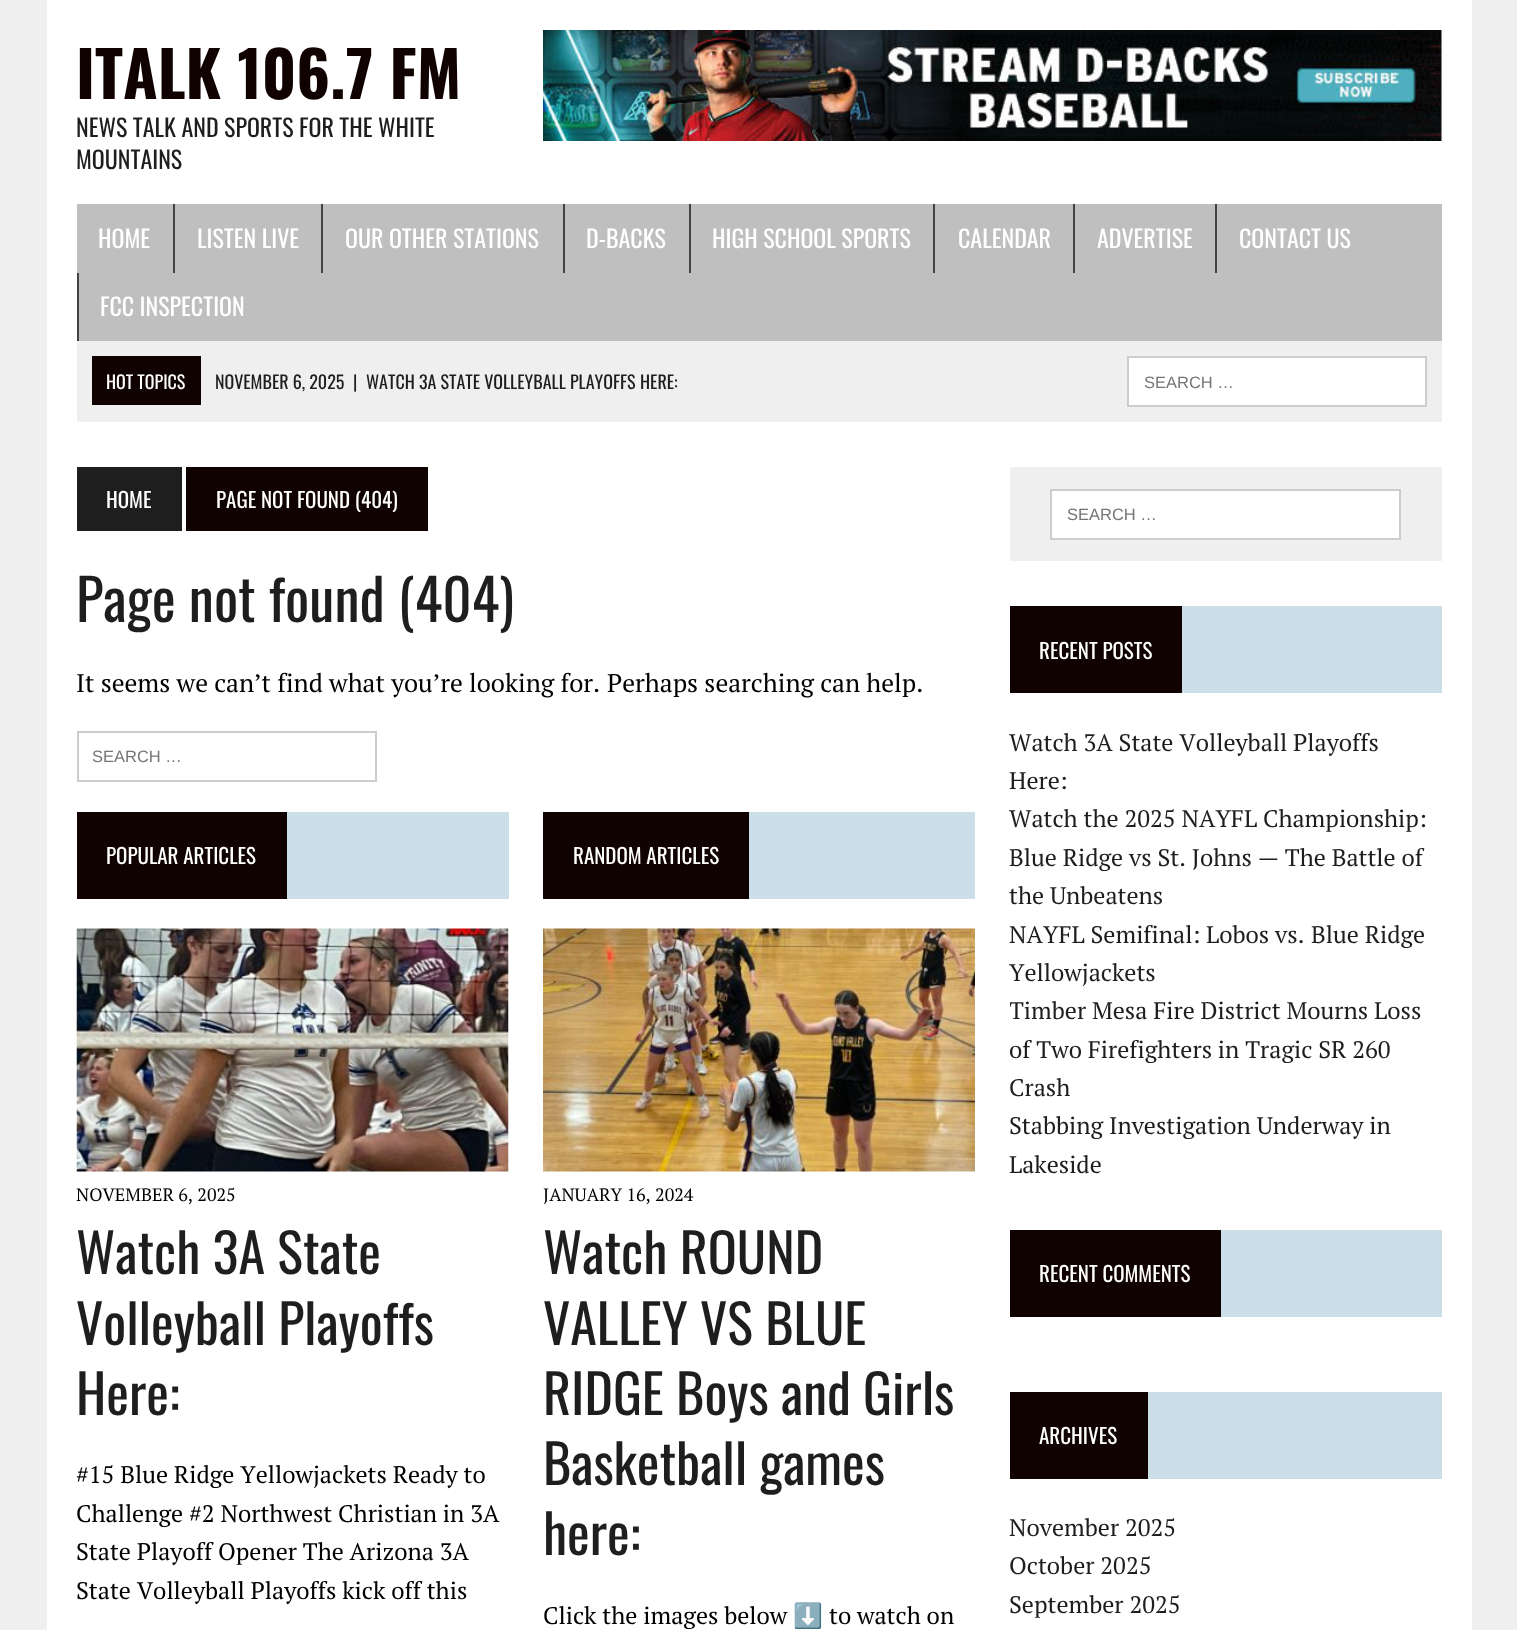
<?xml version="1.0" encoding="UTF-8"?>
<svg xmlns="http://www.w3.org/2000/svg" xmlns:xlink="http://www.w3.org/1999/xlink" width="1517" height="1630">
  <style>*{font-kerning:none!important;font-variant-ligatures:none!important}</style>
  <defs>
    <clipPath id="clip1"><rect x="1010" y="606" width="432" height="579" /></clipPath>
  </defs>
  <rect width="100%" height="100%" fill="#efefef" />
  <rect x="47" width="1425" height="1630" fill="#ffffff" />
  <image x="543" y="30" width="899" height="111" xlink:href="image1.png" />
  <rect x="77" y="204" width="1365" height="137" fill="#bfbfbf" />
  <rect x="173" y="204" width="2" height="69" fill="#424242" />
  <rect x="321" y="204" width="2" height="69" fill="#424242" />
  <rect x="563" y="204" width="2" height="69" fill="#424242" />
  <rect x="689" y="204" width="2" height="69" fill="#424242" />
  <rect x="933" y="204" width="2" height="69" fill="#424242" />
  <rect x="1073" y="204" width="2" height="69" fill="#424242" />
  <rect x="1215" y="204" width="2" height="69" fill="#424242" />
  <rect x="77" y="273" width="2" height="68" fill="#424242" />
  <rect x="77" y="341" width="1365" height="81" fill="#efefef" />
  <rect x="92" y="356" width="109" height="49" fill="#0f0200" />
  <rect x="1128" y="357" width="298" height="49" fill="#ffffff" stroke="#cdcdcd" stroke-width="2" />
  <rect x="77" y="467" width="105" height="64" fill="#1f1e1e" />
  <rect x="186" y="467" width="242" height="64" fill="#0f0200" />
  <rect x="78" y="732" width="298" height="49" fill="none" stroke="#cdcdcd" stroke-width="2" />
  <rect x="287" y="812" width="222" height="87" fill="#ccdee8" />
  <rect x="77" y="812" width="210" height="87" fill="#0f0200" />
  <image x="76" y="928" width="433" height="244" xlink:href="image2.png" />
  <rect x="749" y="812" width="226" height="87" fill="#ccdee8" />
  <rect x="543" y="812" width="206" height="87" fill="#0f0200" />
  <image x="543" y="928" width="432" height="244" xlink:href="image3.png" />
  <rect x="1010" y="467" width="432" height="94" fill="#efefef" />
  <rect x="1051" y="490" width="349" height="49" fill="#ffffff" stroke="#cdcdcd" stroke-width="2" />
  <rect x="1182" y="606" width="260" height="87" fill="#ccdee8" />
  <rect x="1010" y="606" width="172" height="87" fill="#0f0200" />
  <rect x="1221" y="1230" width="221" height="87" fill="#ccdee8" />
  <rect x="1010" y="1230" width="211" height="87" fill="#0f0200" />
  <rect x="1148" y="1392" width="294" height="87" fill="#ccdee8" />
  <rect x="1010" y="1392" width="138" height="87" fill="#0f0200" />
  <text x="76" y="99" style="font-family: Oswald; font-size: 63px; font-weight: bold; fill: #0f0200">ITALK 106.7 FM</text>
  <text x="76" y="137" style="font-family: Oswald; font-size: 24px; fill: #1f1e1e">NEWS TALK AND SPORTS FOR THE WHITE</text>
  <text x="76" y="169" style="font-family: Oswald; font-size: 24px; fill: #1f1e1e">MOUNTAINS</text>
  <text x="98" y="248" style="font-family: Oswald; font-size: 24px; fill: #ffffff">HOME</text>
  <text x="197" y="248" style="font-family: Oswald; font-size: 24px; fill: #ffffff">LISTEN LIVE</text>
  <text x="345" y="248" style="font-family: Oswald; font-size: 24px; fill: #ffffff">OUR OTHER STATIONS</text>
  <text x="586" y="248" style="font-family: Oswald; font-size: 24px; fill: #ffffff">D-BACKS</text>
  <text x="712" y="248" style="font-family: Oswald; font-size: 24px; fill: #ffffff">HIGH SCHOOL SPORTS</text>
  <text x="958" y="248" style="font-family: Oswald; font-size: 24px; fill: #ffffff">CALENDAR</text>
  <text x="1097" y="248" style="font-family: Oswald; font-size: 24px; fill: #ffffff">ADVERTISE</text>
  <text x="1239" y="248" style="font-family: Oswald; font-size: 24px; fill: #ffffff">CONTACT US</text>
  <text x="100" y="316" style="font-family: Oswald; font-size: 24px; fill: #ffffff">FCC INSPECTION</text>
  <text x="106" y="389" style="font-family: Oswald; font-size: 18px; fill: #ffffff">HOT TOPICS</text>
  <text x="215" y="389" style="font-family: Oswald; font-size: 18px; fill: #1f1e1e">NOVEMBER 6, 2025</text>
  <text x="353" y="389" style="font-family: Oswald; font-size: 18px; fill: #1f1e1e">|</text>
  <text x="366" y="389" style="font-family: Oswald; font-size: 18px; fill: #1f1e1e">WATCH 3A STATE VOLLEYBALL PLAYOFFS</text>
  <text x="640" y="389" style="font-family: Oswald; font-size: 18px; fill: #1f1e1e">HERE:</text>
  <text x="1144" y="388" style="font-family: Liberation Sans; font-size: 16.5px; fill: #757575">SEARCH …</text>
  <text x="106" y="508" style="font-family: Oswald; font-size: 21px; fill: #ffffff">HOME</text>
  <text x="216" y="508" style="font-family: Oswald; font-size: 21px; fill: #ffffff">PAGE NOT FOUND (404)</text>
  <text x="76" y="622" style="font-family: Oswald; font-size: 57px; fill: #1f1e1e">Page not found (404)</text>
  <text x="76" y="692" style="font-family: PT Serif; font-size: 25.5px; fill: #000000">It seems we can’t find what you’re looking for.</text>
  <text x="607" y="692" style="font-family: PT Serif; font-size: 25.5px; fill: #000000">Perhaps searching can help.</text>
  <text x="92" y="762" style="font-family: Liberation Sans; font-size: 16.5px; fill: #757575">SEARCH …</text>
  <text x="106" y="864" style="font-family: Oswald; font-size: 21px; fill: #ffffff">POPULAR ARTICLES</text>
  <text x="76" y="1201" style="font-family: PT Serif; font-size: 18px; fill: #000000">NOVEMBER 6, 2025</text>
  <text x="76" y="1274" style="font-family: Oswald; font-size: 54px; fill: #1f1e1e">Watch 3A State</text>
  <text x="76" y="1345" style="font-family: Oswald; font-size: 54px; fill: #1f1e1e">Volleyball Playoffs</text>
  <text x="76" y="1415" style="font-family: Oswald; font-size: 54px; fill: #1f1e1e">Here:</text>
  <text x="76" y="1483" style="font-family: PT Serif; font-size: 24px; fill: #000000">#15 Blue Ridge Yellowjackets Ready to</text>
  <text x="76" y="1522" style="font-family: PT Serif; font-size: 24px; fill: #000000">Challenge #2 Northwest Christian in 3A</text>
  <text x="76" y="1560" style="font-family: PT Serif; font-size: 24px; fill: #000000">State Playoff Opener The Arizona 3A</text>
  <text x="76" y="1599" style="font-family: PT Serif; font-size: 24px; fill: #000000">State Volleyball Playoffs kick off this</text>
  <text x="573" y="864" style="font-family: Oswald; font-size: 21px; fill: #ffffff">RANDOM ARTICLES</text>
  <text x="543" y="1201" style="font-family: PT Serif; font-size: 18px; fill: #000000">JANUARY 16, 2024</text>
  <text x="543" y="1274" style="font-family: Oswald; font-size: 54px; fill: #1f1e1e">Watch ROUND</text>
  <text x="543" y="1345" style="font-family: Oswald; font-size: 54px; fill: #1f1e1e">VALLEY VS BLUE</text>
  <text x="543" y="1415" style="font-family: Oswald; font-size: 54px; fill: #1f1e1e">RIDGE Boys and Girls</text>
  <text x="543" y="1485" style="font-family: Oswald; font-size: 54px; fill: #1f1e1e">Basketball games</text>
  <text x="543" y="1555" style="font-family: Oswald; font-size: 54px; fill: #1f1e1e">here:</text>
  <text x="543" y="1624" style="font-family: PT Serif; font-size: 24px; fill: #000000">Click the images below</text>
  <text x="793" y="1624" style="font-family: Noto Color Emoji; font-size: 24px; fill: #000000">⬇️</text>
  <text x="829" y="1624" style="font-family: PT Serif; font-size: 24px; fill: #000000">to watch on</text>
  <text x="1067" y="520" style="font-family: Liberation Sans; font-size: 16.5px; fill: #757575">SEARCH …</text>
  <text x="1039" y="659" style="font-family: Oswald; font-size: 21px; fill: #ffffff">RECENT POSTS</text>
  <text x="1009" y="751" style="font-family: PT Serif; font-size: 24px; fill: #1f1e1e">Watch 3A State Volleyball</text>
  <text x="1293" y="751" style="font-family: PT Serif; font-size: 24px; fill: #1f1e1e">Playoffs</text>
  <text x="1009" y="789" style="font-family: PT Serif; font-size: 24px; fill: #1f1e1e">Here:</text>
  <text x="1009" y="827" style="font-family: PT Serif; font-size: 24px; fill: #1f1e1e">Watch the 2025 NAYFL Championship:</text>
  <text x="1009" y="866" style="font-family: PT Serif; font-size: 24px; fill: #1f1e1e">Blue Ridge vs St. Johns — The Battle of</text>
  <text x="1009" y="904" style="font-family: PT Serif; font-size: 24px; fill: #1f1e1e">the Unbeatens</text>
  <text x="1009" y="943" style="font-family: PT Serif; font-size: 24px; fill: #1f1e1e">NAYFL Semifinal: Lobos vs.</text>
  <text x="1311" y="943" style="font-family: PT Serif; font-size: 24px; fill: #1f1e1e">Blue Ridge</text>
  <text x="1009" y="981" style="font-family: PT Serif; font-size: 24px; fill: #1f1e1e">Yellowjackets</text>
  <g clip-path="url(#clip1)">
    <text x="1009" y="1019" style="font-family: PT Serif; font-size: 24px; fill: #1f1e1e">Timber Mesa Fire District Mourns Loss</text>
  </g>
  <text x="1009" y="1058" style="font-family: PT Serif; font-size: 24px; fill: #1f1e1e">of Two Firefighters in Tragic SR 260</text>
  <text x="1009" y="1096" style="font-family: PT Serif; font-size: 24px; fill: #1f1e1e">Crash</text>
  <text x="1009" y="1134" style="font-family: PT Serif; font-size: 24px; fill: #1f1e1e">Stabbing Investigation Underway in</text>
  <text x="1009" y="1173" style="font-family: PT Serif; font-size: 24px; fill: #1f1e1e">Lakeside</text>
  <text x="1039" y="1282" style="font-family: Oswald; font-size: 21px; fill: #ffffff">RECENT COMMENTS</text>
  <text x="1039" y="1444" style="font-family: Oswald; font-size: 21px; fill: #ffffff">ARCHIVES</text>
  <text x="1009" y="1536" style="font-family: PT Serif; font-size: 24px; fill: #1f1e1e">November 2025</text>
  <text x="1009" y="1574" style="font-family: PT Serif; font-size: 24px; fill: #1f1e1e">October 2025</text>
  <text x="1009" y="1613" style="font-family: PT Serif; font-size: 24px; fill: #1f1e1e">September 2025</text>
</svg>
